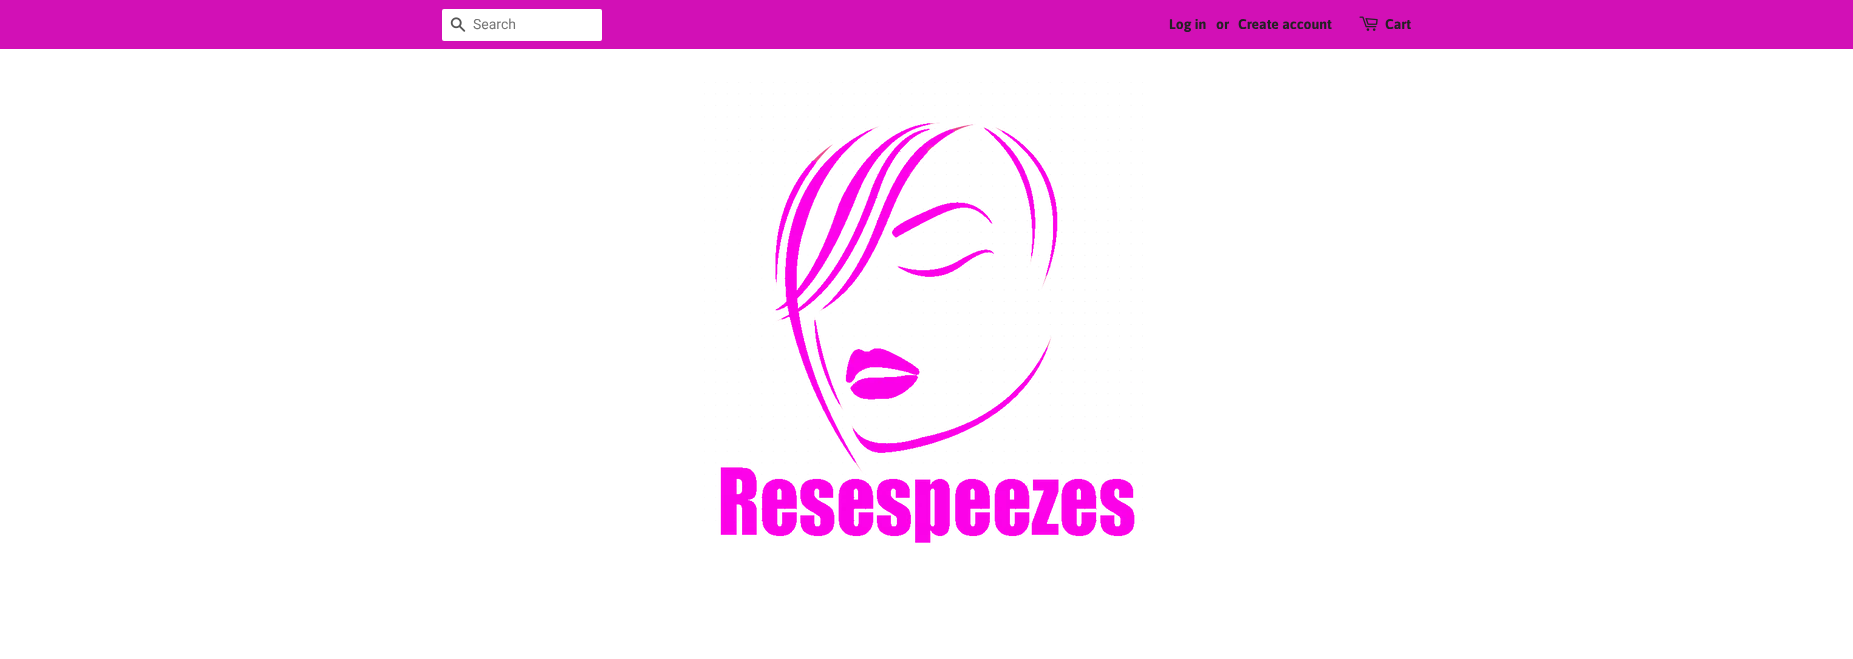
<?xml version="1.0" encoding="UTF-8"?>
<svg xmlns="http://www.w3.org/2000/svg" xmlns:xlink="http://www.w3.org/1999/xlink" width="1853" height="659">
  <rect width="100%" height="100%" fill="#ffffff" />
  <rect width="1853" height="49" fill="#d210b6" />
  <rect x="442" y="9" width="160" height="32" rx="2" fill="#ffffff" />
  <image x="450" y="17" width="16" height="15" xlink:href="image1.png" />
  <image x="1359" y="16" width="19" height="15" xlink:href="image2.png" />
  <image x="704" y="82" width="439" height="461" xlink:href="image3.png" />
  <text x="473" y="29" style="font-family: Roboto; font-size: 14px; fill: #757575">Search</text>
  <text x="1169" y="29" style="font-family: Asap; font-size: 14px; font-weight: bold; fill: #222222">Log in</text>
  <text x="1216" y="29" style="font-family: Asap; font-size: 14px; font-weight: bold; fill: #222222">or</text>
  <text x="1238" y="29" style="font-family: Asap; font-size: 14px; font-weight: bold; fill: #222222">Create account</text>
  <text x="1385" y="29" style="font-family: Asap; font-size: 14px; font-weight: bold; fill: #222222">Cart</text>
</svg>
